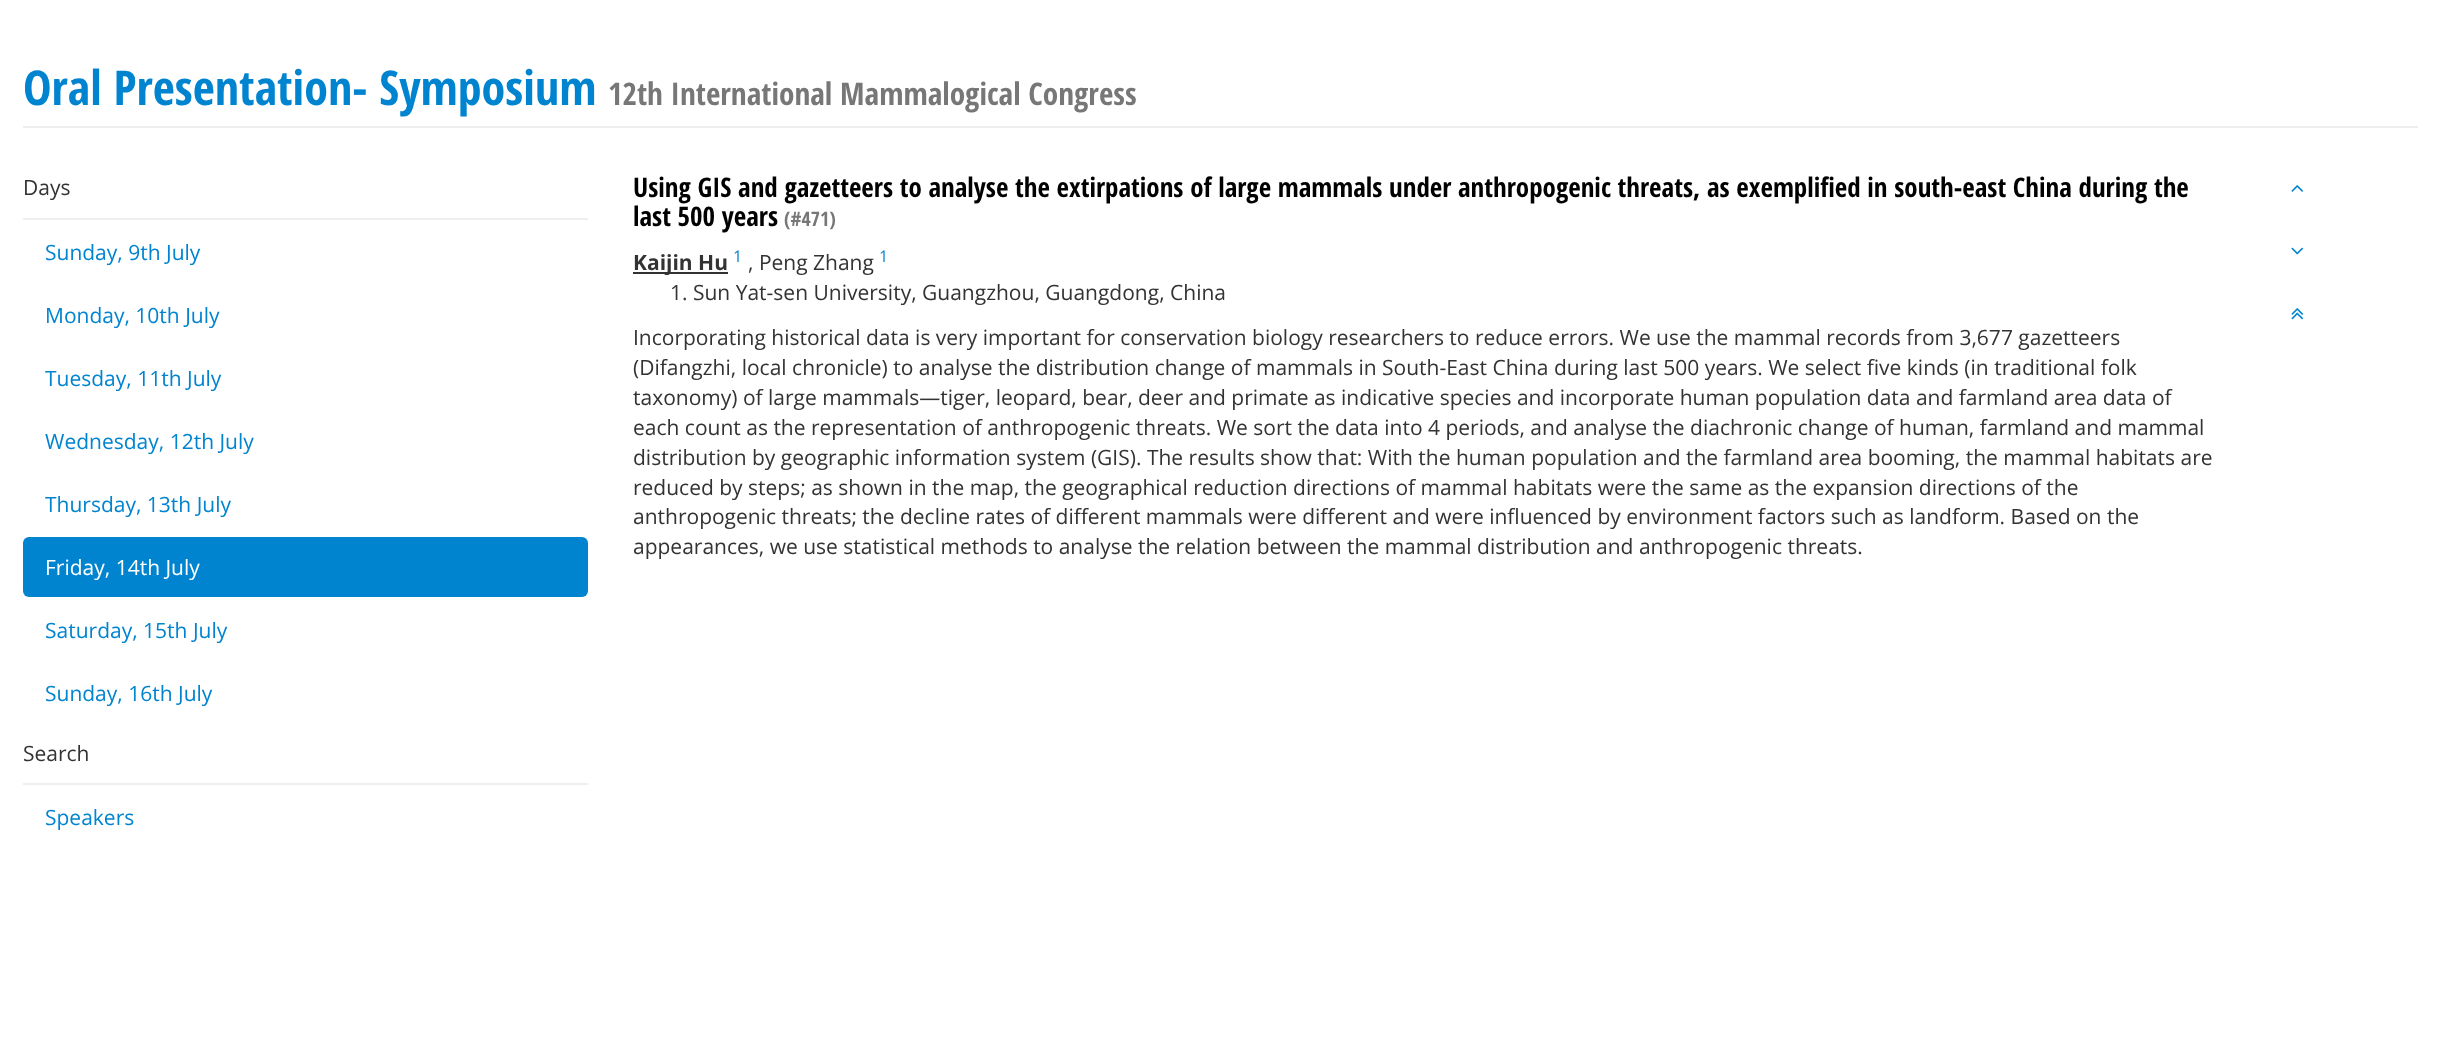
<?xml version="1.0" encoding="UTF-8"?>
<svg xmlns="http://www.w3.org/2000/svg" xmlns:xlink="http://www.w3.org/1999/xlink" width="2440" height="1054">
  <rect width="100%" height="100%" fill="#ffffff" />
  <rect x="23" y="126" width="2395" height="2" fill="#eeeeee" />
  <rect x="23" y="218" width="565" height="2" fill="#eeeeee" />
  <rect x="23" y="537" width="565" height="60" rx="6" fill="#0084d0" />
  <rect x="23" y="783" width="565" height="2" fill="#eeeeee" />
  <rect x="633" y="272" width="95" height="2" fill="#333333" />
  <image x="2291" y="185" width="12" height="7" xlink:href="image1.png" />
  <image x="2291" y="247" width="13" height="8" xlink:href="image2.png" />
  <image x="2291" y="308" width="13" height="12" xlink:href="image3.png" />
  <text x="23" y="105" style="font-family: Open Sans Condensed; font-size: 48px; font-weight: bold; fill: #0084d0">Oral Presentation- Symposium</text>
  <text x="608" y="105" style="font-family: Open Sans Condensed; font-size: 31.25px; font-weight: bold; fill: #777777">12th International Mammalogical Congress</text>
  <text x="23" y="195" style="font-family: Open Sans; font-size: 21px; fill: #333333">Days</text>
  <text x="45" y="260" style="font-family: Open Sans; font-size: 21px; fill: #0084d0">Sunday, 9th July</text>
  <text x="45" y="323" style="font-family: Open Sans; font-size: 21px; fill: #0084d0">Monday, 10th July</text>
  <text x="45" y="386" style="font-family: Open Sans; font-size: 21px; fill: #0084d0">Tuesday, 11th July</text>
  <text x="45" y="449" style="font-family: Open Sans; font-size: 21px; fill: #0084d0">Wednesday, 12th July</text>
  <text x="45" y="512" style="font-family: Open Sans; font-size: 21px; fill: #0084d0">Thursday, 13th July</text>
  <text x="45" y="575" style="font-family: Open Sans; font-size: 21px; fill: #ffffff">Friday, 14th July</text>
  <text x="45" y="638" style="font-family: Open Sans; font-size: 21px; fill: #0084d0">Saturday, 15th July</text>
  <text x="45" y="701" style="font-family: Open Sans; font-size: 21px; fill: #0084d0">Sunday, 16th July</text>
  <text x="23" y="761" style="font-family: Open Sans; font-size: 21px; fill: #333333">Search</text>
  <text x="45" y="825" style="font-family: Open Sans; font-size: 21px; fill: #0084d0">Speakers</text>
  <text x="633" y="197" style="font-family: Open Sans Condensed; font-size: 27px; font-weight: bold; fill: #000000">Using GIS and gazetteers to analyse the extirpations of large mammals under anthropogenic threats, as exemplified in south-east China during the</text>
  <text x="633" y="226" style="font-family: Open Sans Condensed; font-size: 27px; font-weight: bold; fill: #000000">last 500 years</text>
  <text x="784" y="226" style="font-family: Open Sans Condensed; font-size: 20px; font-weight: bold; fill: #777777">(#471)</text>
  <text x="633" y="270" style="font-family: Open Sans; font-size: 21px; font-weight: bold; fill: #333333">Kaijin Hu</text>
  <text x="733" y="262" style="font-family: Open Sans; font-size: 16px; fill: #0084d0">1</text>
  <text x="748" y="270" style="font-family: Open Sans; font-size: 21px; fill: #333333">, Peng Zhang</text>
  <text x="879" y="262" style="font-family: Open Sans; font-size: 16px; fill: #0084d0">1</text>
  <text x="670" y="300" style="font-family: Open Sans; font-size: 21px; fill: #333333">1. Sun Yat-sen University, Guangzhou, Guangdong, China</text>
  <text x="633" y="345" style="font-family: Open Sans; font-size: 21px; fill: #333333">Incorporating historical data is very important for conservation biology researchers to reduce errors. We use the mammal records from 3,677 gazetteers</text>
  <text x="633" y="375" style="font-family: Open Sans; font-size: 21px; fill: #333333">(Difangzhi, local chronicle) to analyse the distribution change of mammals in South-East China during last 500 years. We select five kinds (in traditional folk</text>
  <text x="633" y="405" style="font-family: Open Sans; font-size: 21px; fill: #333333">taxonomy) of large mammals—tiger, leopard, bear, deer and primate as indicative species and incorporate human population data and farmland area data of</text>
  <text x="633" y="435" style="font-family: Open Sans; font-size: 21px; fill: #333333">each count as the representation of anthropogenic threats. We sort the data into 4 periods, and analyse the diachronic change of human, farmland and mammal</text>
  <text x="633" y="465" style="font-family: Open Sans; font-size: 21px; fill: #333333">distribution by geographic information system (GIS). The results show that: With the human population and the farmland area booming, the mammal habitats are</text>
  <text x="633" y="495" style="font-family: Open Sans; font-size: 21px; fill: #333333">reduced by steps; as shown in the map, the geographical reduction directions of mammal habitats were the same as the expansion directions of the</text>
  <text x="633" y="524" style="font-family: Open Sans; font-size: 21px; fill: #333333">anthropogenic threats; the decline rates of different mammals were different and were influenced by environment factors such as landform. Based on the</text>
  <text x="633" y="554" style="font-family: Open Sans; font-size: 21px; fill: #333333">appearances, we use statistical methods to analyse the relation between the mammal distribution and anthropogenic threats.</text>
</svg>
